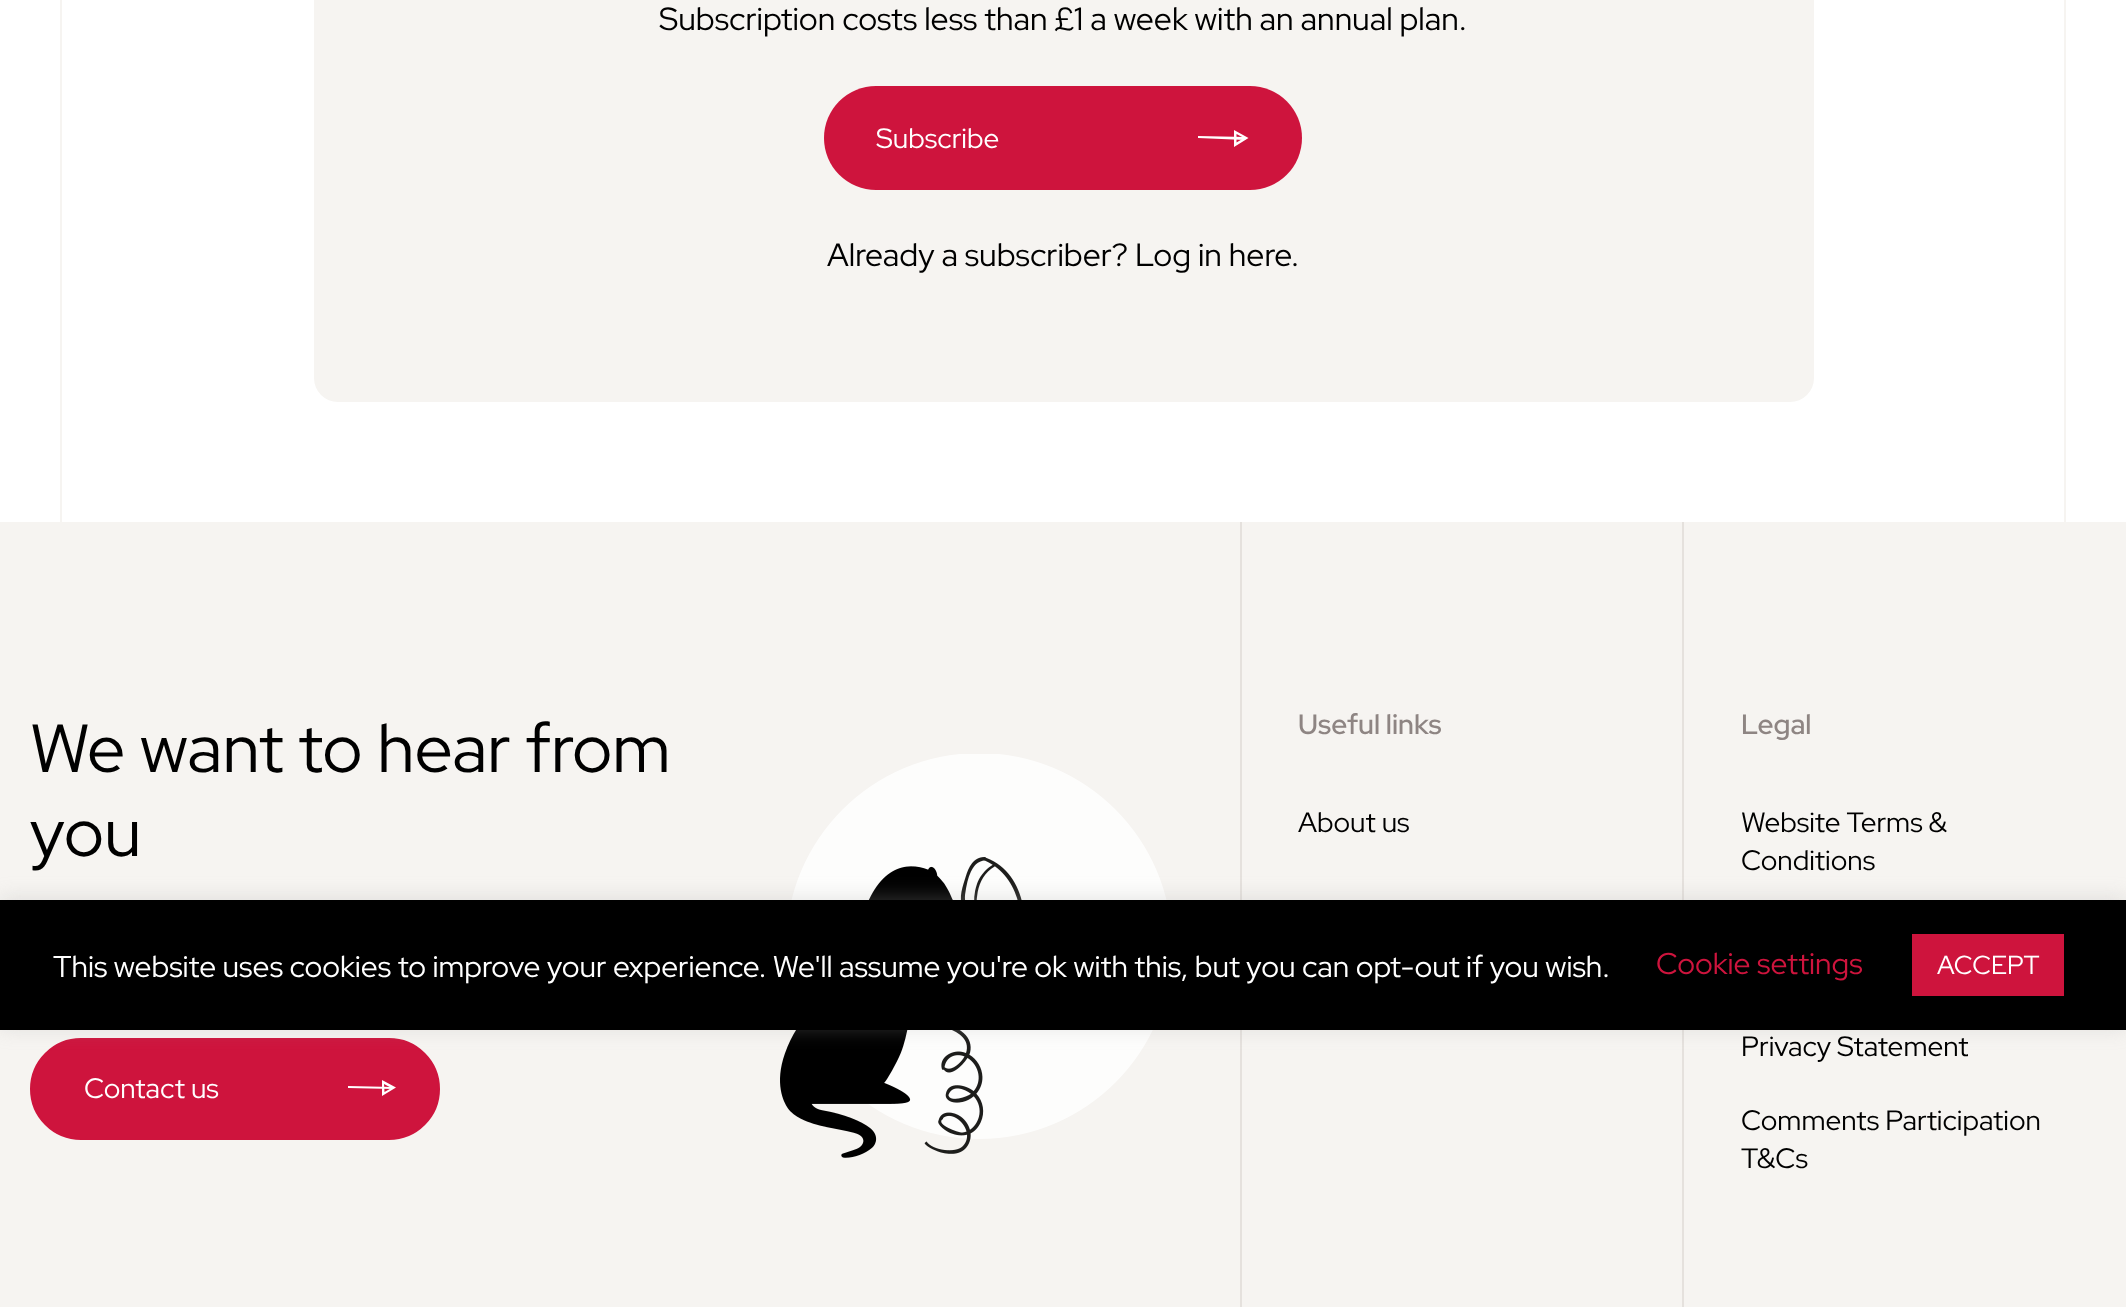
<?xml version="1.0" encoding="UTF-8"?>
<svg xmlns="http://www.w3.org/2000/svg" xmlns:xlink="http://www.w3.org/1999/xlink" width="2126" height="1307">
  <rect width="100%" height="100%" fill="#ffffff" />
  <rect x="2064" width="2" height="522" fill="#f6f4f1" />
  <rect x="60" width="2" height="522" fill="#f6f4f1" />
  <rect x="314" y="-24" width="1500" height="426" rx="24" fill="#f6f4f1" />
  <rect x="824" y="86" width="478" height="104" rx="52" fill="#ce143d" />
  <path d="M 1246 137 l -48 -1 v 2 l 47 2 z" fill="#ffffff" />
  <path d="M 1248.5 138 l -14.5 9 v -17 z m -12 4.5 l 7.5 -4.5 l -7.5 -4 z" fill="#ffffff" />
  <rect y="522" width="2126" height="785" fill="#f6f4f1" />
  <image x="780" y="754" width="387" height="404" xlink:href="image1.png" />
  <rect x="31" y="1039" width="408" height="100" rx="50" fill="#ce143d" stroke="#ce143d" stroke-width="2" />
  <path d="M 393 1087 l -45 -1 v 2 l 45 1 z" fill="#ffffff" />
  <path d="M 396 1087.5 l -14 8.5 v -16 z m -11.5 4.5 l 7 -4 l -7.5 -4 z" fill="#ffffff" />
  <rect x="1240" y="522" width="2" height="785" fill="#e5e1dd" />
  <rect x="1682" y="522" width="2" height="785" fill="#e5e1dd" />
  <rect y="898" width="2126" height="130" fill="#acabab" fill-opacity="0.3" filter="blur(10px)" />
  <rect y="900" width="2126" height="130" fill="#000000" />
  <rect x="1912" y="934" width="152" height="62" fill="#ce143d" />
  <text x="659" y="30" style="font-family: Red Hat Display; font-size: 32px; fill: #000000">Subscription costs less than £1 a week with an annual plan.</text>
  <text x="876" y="148" style="font-family: Red Hat Display; font-size: 28px; fill: #ffffff">Subscribe</text>
  <text x="827" y="266" style="font-family: Red Hat Display; font-size: 32px; fill: #000000">Already a subscriber?</text>
  <text x="1135" y="266" style="font-family: Red Hat Display; font-size: 32px; fill: #000000">Log in here</text>
  <text x="1291" y="266" style="font-family: Red Hat Display; font-size: 32px; fill: #000000">.</text>
  <text x="30" y="772" style="font-family: Red Hat Display; font-size: 68px; fill: #000000">We want to hear from</text>
  <text x="30" y="856" style="font-family: Red Hat Display; font-size: 68px; fill: #000000">you</text>
  <text x="84" y="1098" style="font-family: Red Hat Display; font-size: 28px; fill: #ffffff">Contact us</text>
  <text x="1298" y="734" style="font-family: Red Hat Display; font-size: 28px; font-weight: 600; fill: #8e8583">Useful links</text>
  <text x="1298" y="832" style="font-family: Red Hat Display; font-size: 28px; fill: #000000">About us</text>
  <text x="1741" y="734" style="font-family: Red Hat Display; font-size: 28px; font-weight: 600; fill: #8e8583">Legal</text>
  <text x="1741" y="832" style="font-family: Red Hat Display; font-size: 28px; fill: #000000">Website Terms &amp;</text>
  <text x="1741" y="870" style="font-family: Red Hat Display; font-size: 28px; fill: #000000">Conditions</text>
  <text x="1741" y="1056" style="font-family: Red Hat Display; font-size: 28px; fill: #000000">Privacy Statement</text>
  <text x="1741" y="1130" style="font-family: Red Hat Display; font-size: 28px; fill: #000000">Comments Participation</text>
  <text x="1741" y="1168" style="font-family: Red Hat Display; font-size: 28px; fill: #000000">T&amp;Cs</text>
  <text x="53" y="977" style="font-family: Red Hat Display; font-size: 30px; fill: #ffffff">This website uses cookies to improve your experience. We'll assume you're ok with this, but you can opt-out if you wish.</text>
  <text x="1656" y="974" style="font-family: Red Hat Display; font-size: 30px; fill: #ce143d">Cookie settings</text>
  <text x="1937" y="974" style="font-family: Red Hat Display; font-size: 26px; fill: #ffffff">ACCEPT</text>
</svg>
